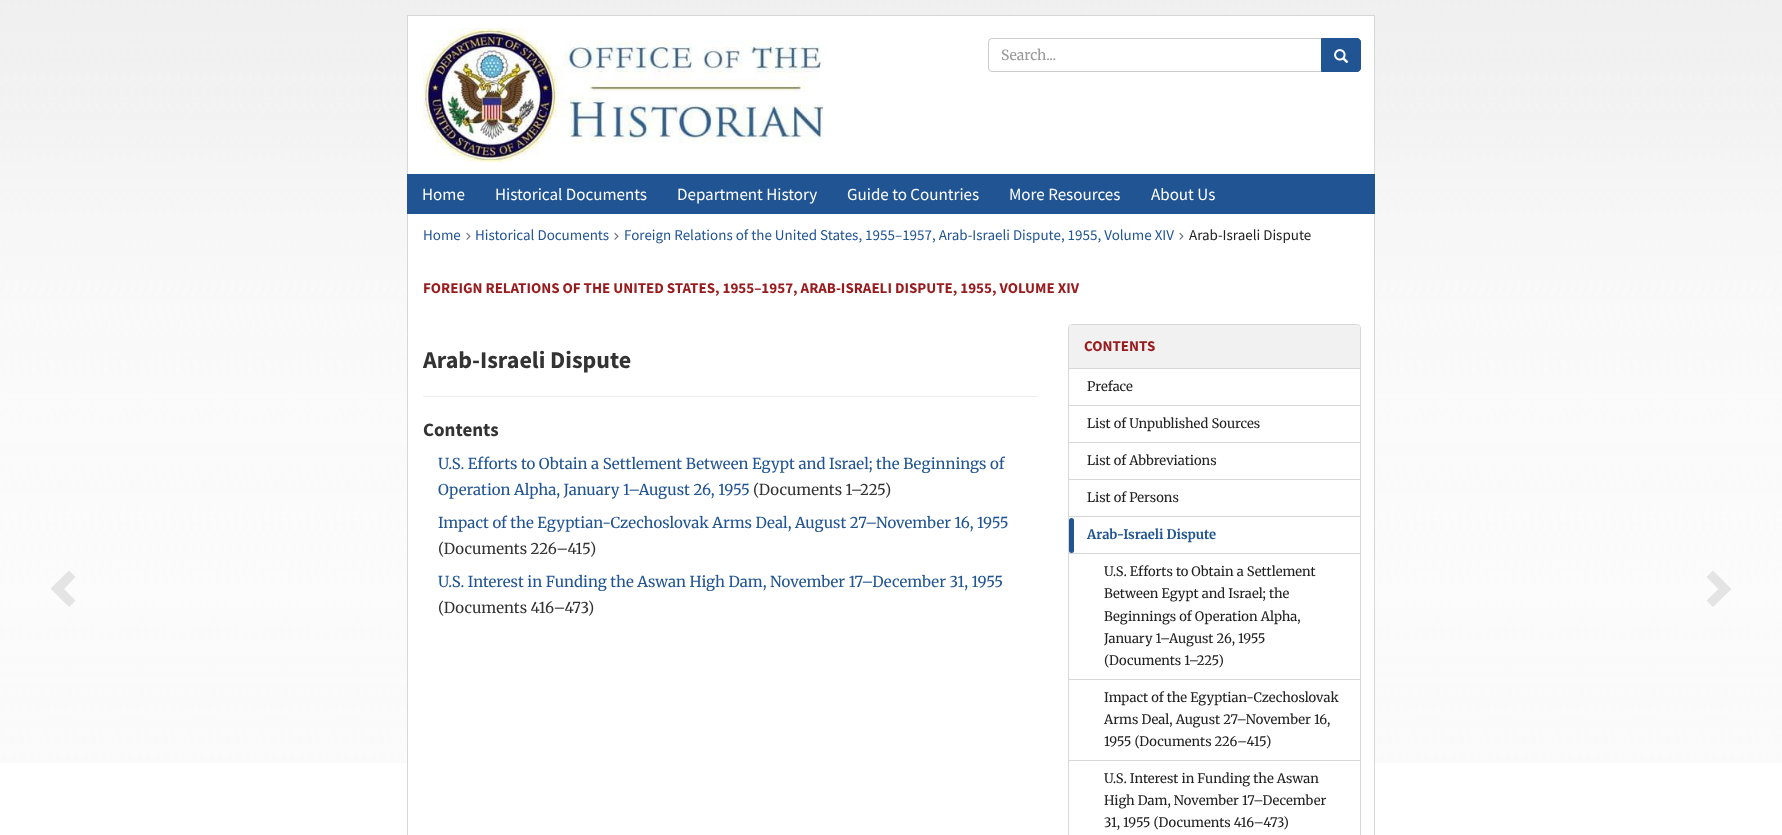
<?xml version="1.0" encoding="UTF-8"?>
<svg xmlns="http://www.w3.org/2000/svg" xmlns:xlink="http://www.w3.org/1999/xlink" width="1782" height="835">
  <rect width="100%" height="100%" fill="#ffffff" />
  <image x="0" y="0" width="1782" height="763" xlink:href="image1.png" />
  <rect x="408" y="16" width="966" height="158" fill="#ffffff" />
  <rect x="407" y="15" width="968" height="1" fill="#d6d7d9" />
  <rect x="1374" y="15" width="1" height="159" fill="#d6d7d9" />
  <rect x="407" y="15" width="1" height="159" fill="#d6d7d9" />
  <image x="423" y="28" width="400" height="134" xlink:href="image2.png" />
  <rect x="988.5" y="38.5" width="372" height="33" rx="3.5" fill="none" stroke="#cccccc" />
  <path d="M 1321.5 38.5 h 35.5 c 2 0 3.5 1.5 3.5 3.5 v 26 c 0 2 -1.5 3.5 -3.5 3.5 h -35.5 z" fill="#205493" stroke="#205493" />
  <image x="1334" y="49" width="15" height="14" xlink:href="image3.png" />
  <rect x="407" y="174" width="968" height="40" fill="#205493" />
  <rect x="408" y="214" width="966" height="549" fill="#ffffff" />
  <rect x="1374" y="214" width="1" height="621" fill="#d6d7d9" />
  <rect x="407" y="214" width="1" height="621" fill="#d6d7d9" />
  <image x="466" y="232" width="5" height="8" xlink:href="image4.png" />
  <image x="614" y="232" width="5" height="8" xlink:href="image4.png" />
  <image x="1179" y="232" width="5" height="8" xlink:href="image4.png" />
  <path d="M 75.5 577 l -11.5 12 l 11.5 11.5 l -6.5 6.5 l -18.5 -18.5 l 18.5 -18 z" fill="#e4e4e4" />
  <rect x="423" y="396" width="615" height="1" fill="#eeeeee" />
  <rect x="1068.5" y="324.5" width="292" height="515" rx="3.5" fill="none" stroke="#d6d7d9" />
  <path d="M 1072 325 h 285 c 1.5 0 3 1.5 3 3 v 41 h -291 v -41 c 0 -1.5 1.5 -3 3 -3 z" fill="#f1f1f1" />
  <rect x="1069" y="368" width="291" height="1" fill="#d6d7d9" />
  <rect x="1069" y="405" width="291" height="1" fill="#d6d7d9" />
  <rect x="1069" y="442" width="291" height="1" fill="#d6d7d9" />
  <rect x="1069" y="479" width="291" height="1" fill="#d6d7d9" />
  <rect x="1069" y="516" width="291" height="1" fill="#d6d7d9" />
  <rect x="1069" y="518" width="5" height="35" rx="2.5" fill="#205493" />
  <rect x="1069" y="553" width="291" height="1" fill="#d6d7d9" />
  <rect x="1069" y="679" width="291" height="1" fill="#d6d7d9" />
  <rect x="1069" y="760" width="291" height="1" fill="#d6d7d9" />
  <path d="M 1731.5 589 l -18.5 18 l -6.5 -6.5 l 12 -11.5 l -12 -12 l 6.5 -6.5 z" fill="#e4e4e4" />
  <text x="1001" y="60" style="font-family: Merriweather; font-size: 14px; fill: #999999">Search...</text>
  <text x="422" y="200" style="font-family: Source Sans Pro; font-size: 17px; fill: #ffffff">Home</text>
  <text x="495" y="200" style="font-family: Source Sans Pro; font-size: 17px; fill: #ffffff">Historical Documents</text>
  <text x="677" y="200" style="font-family: Source Sans Pro; font-size: 17px; fill: #ffffff">Department History</text>
  <text x="847" y="200" style="font-family: Source Sans Pro; font-size: 17px; fill: #ffffff">Guide to Countries</text>
  <text x="1009" y="200" style="font-family: Source Sans Pro; font-size: 17px; fill: #ffffff">More Resources</text>
  <text x="1151" y="200" style="font-family: Source Sans Pro; font-size: 17px; fill: #ffffff">About Us</text>
  <text x="423" y="240" style="font-family: Source Sans Pro; font-size: 15px; fill: #205493">Home</text>
  <text x="475" y="240" style="font-family: Source Sans Pro; font-size: 15px; fill: #205493">Historical Documents</text>
  <text x="624" y="240" style="font-family: Source Sans Pro; font-size: 15px; fill: #205493">Foreign Relations of the United States, 1955–1957, Arab-Israeli Dispute, 1955, Volume XIV</text>
  <text x="1189" y="240" style="font-family: Source Sans Pro; font-size: 15px; fill: #212121">Arab-Israeli Dispute</text>
  <text x="423" y="293" style="font-family: Source Sans Pro; font-size: 15px; font-weight: bold; fill: #981b1e">FOREIGN RELATIONS OF THE UNITED STATES, 1955–1957, ARAB-ISRAELI DISPUTE, 1955, VOLUME XIV</text>
  <text x="423" y="368" style="font-family: Source Sans Pro; font-size: 24px; font-weight: bold; fill: #333333">Arab-Israeli Dispute</text>
  <text x="423" y="436" style="font-family: Source Sans Pro; font-size: 19px; font-weight: bold; fill: #333333">Contents</text>
  <text x="438" y="469" style="font-family: Merriweather; font-size: 15px; fill: #205493">U.S. Efforts to Obtain a Settlement Between Egypt and Israel; the Beginnings of</text>
  <text x="438" y="495" style="font-family: Merriweather; font-size: 15px; fill: #205493">Operation Alpha, January 1–August 26, 1955</text>
  <text x="753" y="495" style="font-family: Merriweather; font-size: 15px; fill: #333333">(Documents 1–225)</text>
  <text x="438" y="528" style="font-family: Merriweather; font-size: 15px; fill: #205493">Impact of the Egyptian-Czechoslovak Arms Deal, August 27–November 16, 1955</text>
  <text x="438" y="554" style="font-family: Merriweather; font-size: 15px; fill: #333333">(Documents 226–415)</text>
  <text x="438" y="587" style="font-family: Merriweather; font-size: 15px; fill: #205493">U.S. Interest in Funding the Aswan High Dam, November 17–December 31, 1955</text>
  <text x="438" y="613" style="font-family: Merriweather; font-size: 15px; fill: #333333">(Documents 416–473)</text>
  <text x="1084" y="351" style="font-family: Source Sans Pro; font-size: 15px; font-weight: bold; fill: #981b1e">CONTENTS</text>
  <text x="1087" y="391" style="font-family: Merriweather; font-size: 13px; fill: #212121">Preface</text>
  <text x="1087" y="428" style="font-family: Merriweather; font-size: 13px; fill: #212121">List of Unpublished Sources</text>
  <text x="1087" y="465" style="font-family: Merriweather; font-size: 13px; fill: #212121">List of Abbreviations</text>
  <text x="1087" y="502" style="font-family: Merriweather; font-size: 13px; fill: #212121">List of Persons</text>
  <text x="1087" y="539" style="font-family: Merriweather; font-size: 13px; font-weight: bold; fill: #205493">Arab-Israeli Dispute</text>
  <text x="1104" y="576" style="font-family: Merriweather; font-size: 13px; fill: #212121">U.S. Efforts to Obtain a Settlement</text>
  <text x="1104" y="598" style="font-family: Merriweather; font-size: 13px; fill: #212121">Between Egypt and Israel; the</text>
  <text x="1104" y="621" style="font-family: Merriweather; font-size: 13px; fill: #212121">Beginnings of Operation Alpha,</text>
  <text x="1104" y="643" style="font-family: Merriweather; font-size: 13px; fill: #212121">January 1–August 26, 1955</text>
  <text x="1104" y="665" style="font-family: Merriweather; font-size: 13px; fill: #212121">(Documents 1–225)</text>
  <text x="1104" y="702" style="font-family: Merriweather; font-size: 13px; fill: #212121">Impact of the Egyptian-Czechoslovak</text>
  <text x="1104" y="724" style="font-family: Merriweather; font-size: 13px; fill: #212121">Arms Deal, August 27–November 16,</text>
  <text x="1104" y="746" style="font-family: Merriweather; font-size: 13px; fill: #212121">1955 (Documents 226–415)</text>
  <text x="1104" y="783" style="font-family: Merriweather; font-size: 13px; fill: #212121">U.S. Interest in Funding the Aswan</text>
  <text x="1104" y="805" style="font-family: Merriweather; font-size: 13px; fill: #212121">High Dam, November 17–December</text>
  <text x="1104" y="827" style="font-family: Merriweather; font-size: 13px; fill: #212121">31, 1955 (Documents 416–473)</text>
</svg>
